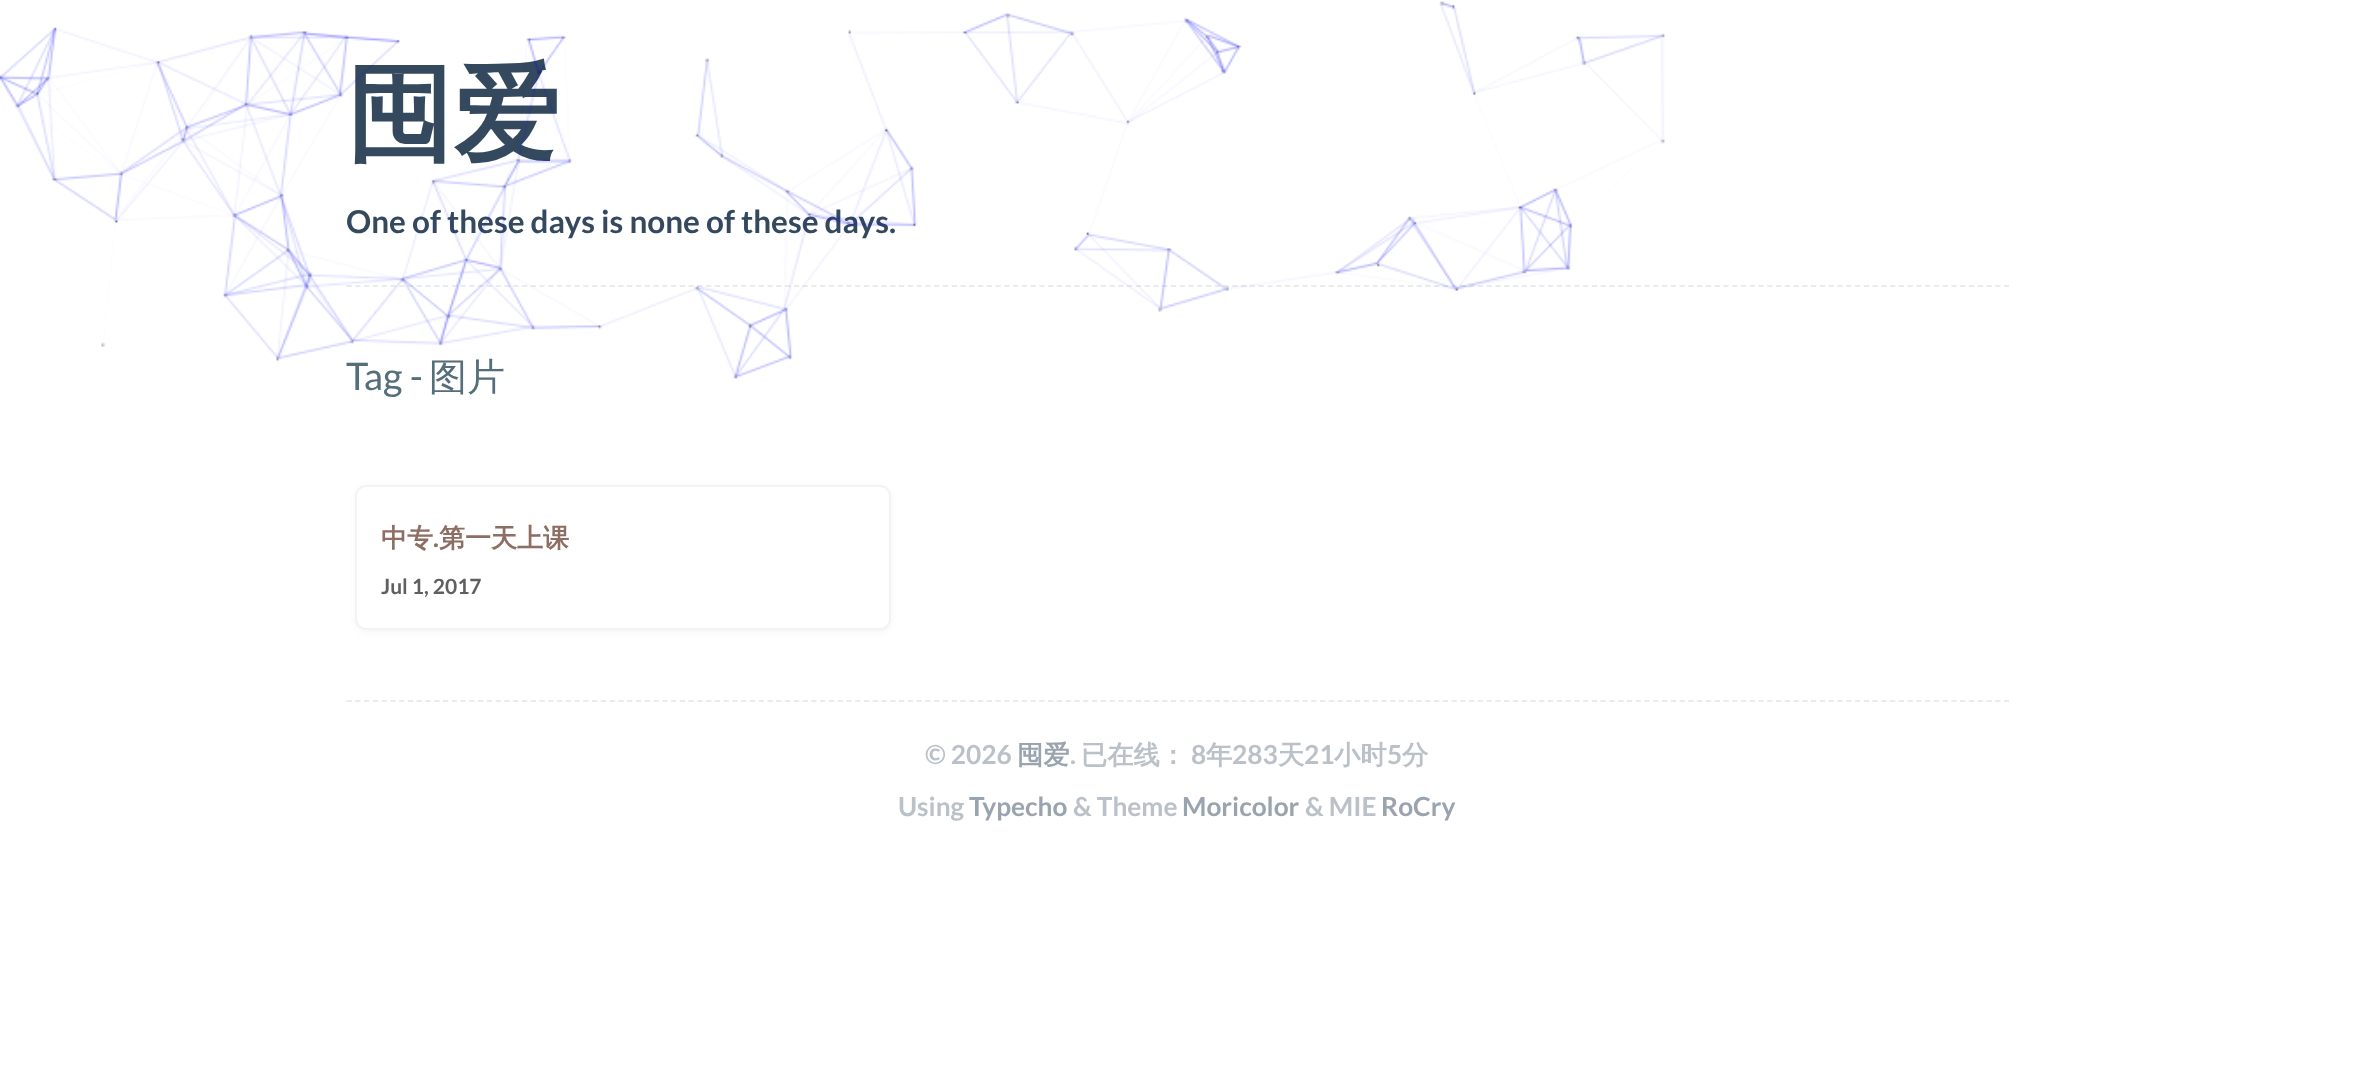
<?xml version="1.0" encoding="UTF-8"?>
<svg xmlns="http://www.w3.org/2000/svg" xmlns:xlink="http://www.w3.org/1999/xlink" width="2353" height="1080">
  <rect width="100%" height="100%" fill="#ffffff" />
  <path d="M 346.5 286 h 1662.5" fill="none" stroke="#e8ecee" stroke-width="1.8" stroke-dasharray="5.25 3.52" />
  <rect x="355" y="487" width="536" height="145" rx="11" fill="#000000" fill-opacity="0.04" filter="blur(3.5px)" />
  <rect x="356" y="486" width="534" height="143" rx="10" fill="#ffffff" stroke="#f1f3f7" stroke-width="2" />
  <path d="M 346.5 701 h 1662.5" fill="none" stroke="#e8ecee" stroke-width="1.8" stroke-dasharray="5.25 3.52" />
  <text x="346" y="151" style="font-family: WenQuanYi Zen Hei; font-size: 107px; font-weight: bold; fill: #34495e">囤爱</text>
  <text x="346" y="233" style="font-family: Lato; font-size: 31.5px; font-weight: bold; fill: #34495e">One of these days is none of these days.</text>
  <text x="346" y="390" style="font-family: Lato; font-size: 38px; fill: #546e7a">Tag -</text>
  <text x="429" y="390" style="font-family: WenQuanYi Zen Hei; font-size: 38px; font-weight: 500; fill: #546e7a">图片</text>
  <image x="0" y="1" width="1665" height="378" xlink:href="image1.png" />
  <text x="381" y="547" style="font-family: WenQuanYi Zen Hei; font-size: 26px; font-weight: bold; fill: #8d6e63">中专</text>
  <text x="433" y="547" style="font-family: Lato; font-size: 26px; font-weight: bold; fill: #8d6e63">.</text>
  <text x="439" y="547" style="font-family: WenQuanYi Zen Hei; font-size: 26px; font-weight: bold; fill: #8d6e63">第一天上课</text>
  <text x="381" y="594" style="font-family: Lato; font-size: 21px; font-weight: bold; fill: #5f5f5f">Jul 1, 2017</text>
  <text x="925" y="764" style="font-family: Lato; font-size: 26.25px; font-weight: bold; fill: #bac1c8">© 2026</text>
  <text x="1017" y="764" style="font-family: WenQuanYi Zen Hei; font-size: 26.25px; font-weight: bold; fill: #9aa4af">囤爱</text>
  <text x="1070" y="764" style="font-family: Lato; font-size: 26.25px; font-weight: bold; fill: #bac1c8">.</text>
  <text x="1081" y="764" style="font-family: WenQuanYi Zen Hei; font-size: 26.25px; font-weight: bold; fill: #bac1c8">已在线：</text>
  <text x="1191" y="764" style="font-family: Lato; font-size: 26.25px; font-weight: bold; fill: #bac1c8">8</text>
  <text x="1206" y="764" style="font-family: WenQuanYi Zen Hei; font-size: 26.25px; font-weight: bold; fill: #bac1c8">年</text>
  <text x="1232" y="764" style="font-family: Lato; font-size: 26.25px; font-weight: bold; fill: #bac1c8">283</text>
  <text x="1278" y="764" style="font-family: WenQuanYi Zen Hei; font-size: 26.25px; font-weight: bold; fill: #bac1c8">天</text>
  <text x="1304" y="764" style="font-family: Lato; font-size: 26.25px; font-weight: bold; fill: #bac1c8">21</text>
  <text x="1334" y="764" style="font-family: WenQuanYi Zen Hei; font-size: 26.25px; font-weight: bold; fill: #bac1c8">小时</text>
  <text x="1387" y="764" style="font-family: Lato; font-size: 26.25px; font-weight: bold; fill: #bac1c8">5</text>
  <text x="1402" y="764" style="font-family: WenQuanYi Zen Hei; font-size: 26.25px; font-weight: bold; fill: #bac1c8">分</text>
  <text x="898" y="816" style="font-family: Lato; font-size: 26.25px; font-weight: bold; fill: #bac1c8">Using</text>
  <text x="969" y="816" style="font-family: Lato; font-size: 26.25px; font-weight: bold; fill: #9aa4af">Typecho</text>
  <text x="1073" y="816" style="font-family: Lato; font-size: 26.25px; font-weight: bold; fill: #bac1c8">&amp; Theme</text>
  <text x="1182" y="816" style="font-family: Lato; font-size: 26.25px; font-weight: bold; fill: #9aa4af">Moricolor</text>
  <text x="1305" y="816" style="font-family: Lato; font-size: 26.25px; font-weight: bold; fill: #bac1c8">&amp; MIE</text>
  <text x="1381" y="816" style="font-family: Lato; font-size: 26.25px; font-weight: bold; fill: #9aa4af">RoCry</text>
</svg>
